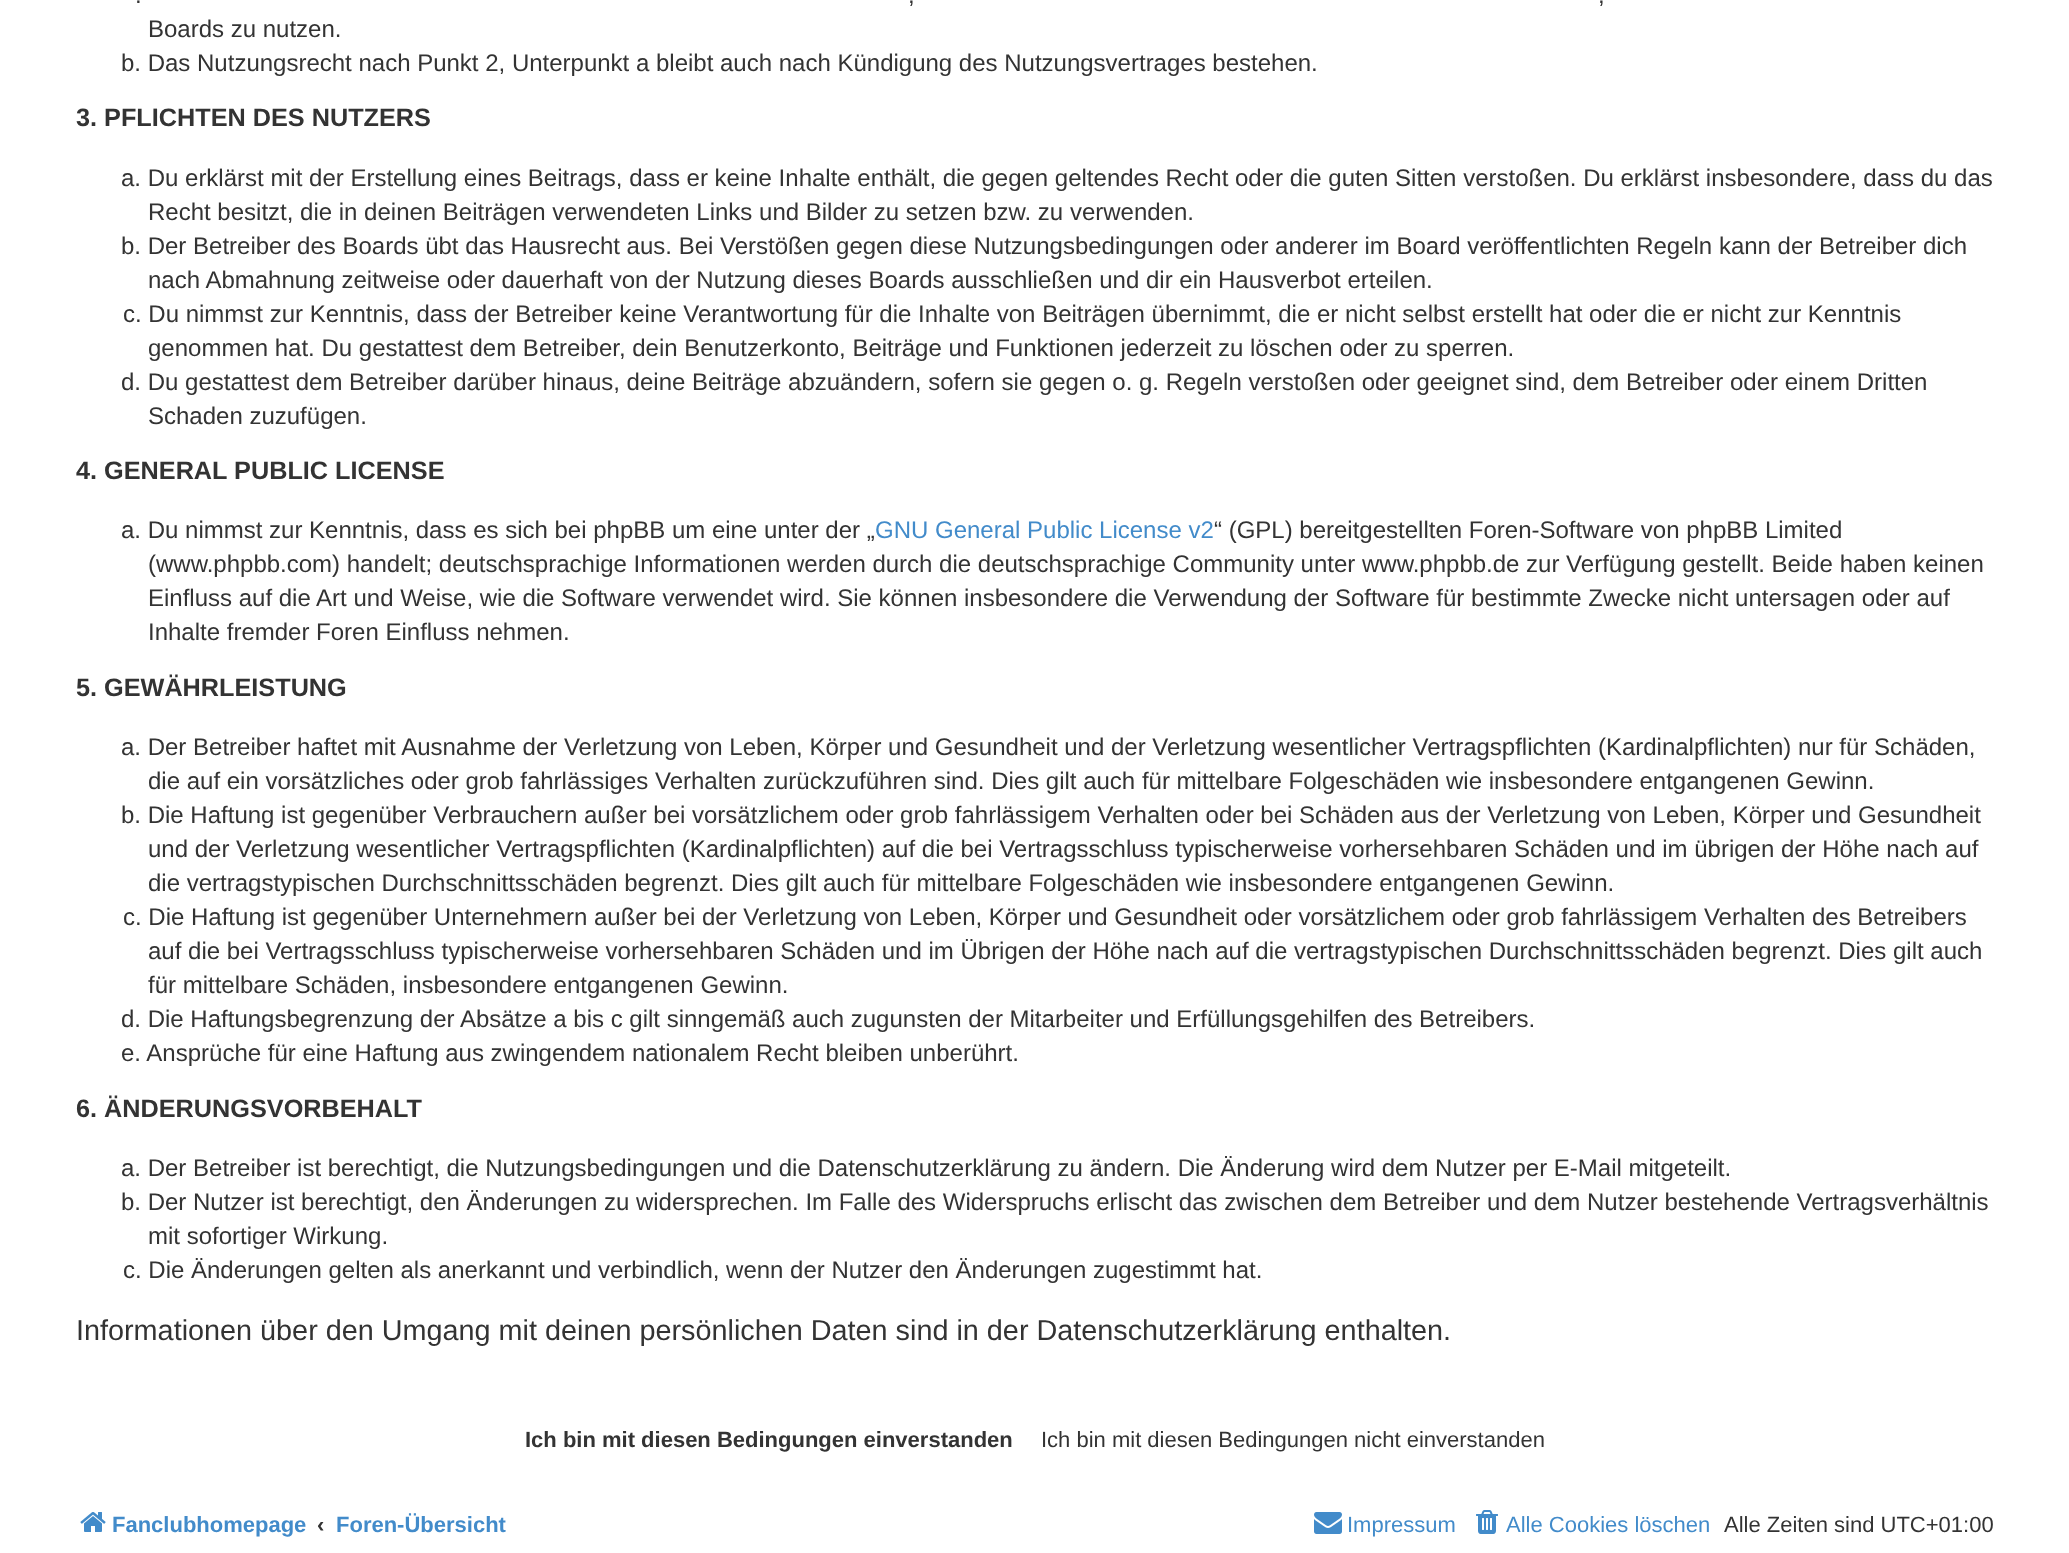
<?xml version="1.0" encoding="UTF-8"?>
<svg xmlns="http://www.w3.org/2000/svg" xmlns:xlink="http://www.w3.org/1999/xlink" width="2069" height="1553">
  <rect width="100%" height="100%" fill="#ffffff" />
  <image x="80" y="1512" width="26" height="20" xlink:href="image1.png" />
  <image x="1314" y="1512" width="28" height="22" xlink:href="image2.png" />
  <image x="1476" y="1510" width="22" height="24" xlink:href="image3.png" />
  <text x="135" y="3" style="font-family: Liberation Sans; font-size: 24px; fill: #333333">.</text>
  <text x="908" y="3" style="font-family: Liberation Sans; font-size: 24px; fill: #333333">,</text>
  <text x="1598" y="3" style="font-family: Liberation Sans; font-size: 24px; fill: #333333">,</text>
  <text x="148" y="37" style="font-family: Liberation Sans; font-size: 24px; fill: #333333">Boards zu nutzen.</text>
  <text x="121" y="71" style="font-family: Liberation Sans; font-size: 24px; fill: #333333">b. Das Nutzungsrecht nach Punkt 2, Unterpunkt a bleibt auch nach Kündigung des Nutzungsvertrages bestehen.</text>
  <text x="76" y="126" style="font-family: Liberation Sans; font-size: 25.25px; font-weight: bold; fill: #333333">3. PFLICHTEN DES NUTZERS</text>
  <text x="121" y="186" style="font-family: Liberation Sans; font-size: 24px; fill: #333333">a. Du erklärst mit der Erstellung eines Beitrags, dass er keine Inhalte enthält, die gegen geltendes Recht oder die guten Sitten verstoßen. Du erklärst insbesondere, dass du das</text>
  <text x="148" y="220" style="font-family: Liberation Sans; font-size: 24px; fill: #333333">Recht besitzt, die in deinen Beiträgen verwendeten Links und Bilder zu setzen bzw. zu verwenden.</text>
  <text x="121" y="254" style="font-family: Liberation Sans; font-size: 24px; fill: #333333">b. Der Betreiber des Boards übt das Hausrecht aus. Bei Verstößen gegen diese Nutzungsbedingungen oder anderer im Board veröffentlichten Regeln kann der Betreiber dich</text>
  <text x="148" y="288" style="font-family: Liberation Sans; font-size: 24px; fill: #333333">nach Abmahnung zeitweise oder dauerhaft von der Nutzung dieses Boards ausschließen und dir ein Hausverbot erteilen.</text>
  <text x="123" y="322" style="font-family: Liberation Sans; font-size: 24px; fill: #333333">c. Du nimmst zur Kenntnis, dass der Betreiber keine Verantwortung für die Inhalte von Beiträgen übernimmt, die er nicht selbst erstellt hat oder die er nicht zur Kenntnis</text>
  <text x="148" y="356" style="font-family: Liberation Sans; font-size: 24px; fill: #333333">genommen hat. Du gestattest dem Betreiber, dein Benutzerkonto, Beiträge und Funktionen jederzeit zu löschen oder zu sperren.</text>
  <text x="121" y="390" style="font-family: Liberation Sans; font-size: 24px; fill: #333333">d. Du gestattest dem Betreiber darüber hinaus, deine Beiträge abzuändern, sofern sie gegen o. g. Regeln verstoßen oder geeignet sind, dem Betreiber oder einem Dritten</text>
  <text x="148" y="424" style="font-family: Liberation Sans; font-size: 24px; fill: #333333">Schaden zuzufügen.</text>
  <text x="76" y="479" style="font-family: Liberation Sans; font-size: 25.25px; font-weight: bold; fill: #333333">4. GENERAL PUBLIC LICENSE</text>
  <text x="121" y="538" style="font-family: Liberation Sans; font-size: 24px; fill: #333333">a. Du nimmst zur Kenntnis, dass es sich bei phpBB um eine unter der „</text>
  <text x="875" y="538" style="font-family: Liberation Sans; font-size: 24px; fill: #428bca">GNU General Public License v2</text>
  <text x="1214" y="538" style="font-family: Liberation Sans; font-size: 24px; fill: #333333">“ (GPL) bereitgestellten Foren-Software von phpBB Limited</text>
  <text x="148" y="572" style="font-family: Liberation Sans; font-size: 24px; fill: #333333">(www.phpbb.com) handelt; deutschsprachige Informationen werden durch die deutschsprachige Community unter www.phpbb.de zur Verfügung gestellt. Beide haben keinen</text>
  <text x="148" y="606" style="font-family: Liberation Sans; font-size: 24px; fill: #333333">Einfluss auf die Art und Weise, wie die Software verwendet wird. Sie können insbesondere die Verwendung der Software für bestimmte Zwecke nicht untersagen oder auf</text>
  <text x="148" y="640" style="font-family: Liberation Sans; font-size: 24px; fill: #333333">Inhalte fremder Foren Einfluss nehmen.</text>
  <text x="76" y="696" style="font-family: Liberation Sans; font-size: 25.25px; font-weight: bold; fill: #333333">5. GEWÄHRLEISTUNG</text>
  <text x="121" y="755" style="font-family: Liberation Sans; font-size: 24px; fill: #333333">a. Der Betreiber haftet mit Ausnahme der Verletzung von Leben, Körper und Gesundheit und der Verletzung wesentlicher Vertragspflichten (Kardinalpflichten) nur für Schäden,</text>
  <text x="148" y="789" style="font-family: Liberation Sans; font-size: 24px; fill: #333333">die auf ein vorsätzliches oder grob fahrlässiges Verhalten zurückzuführen sind. Dies gilt auch für mittelbare Folgeschäden wie insbesondere entgangenen Gewinn.</text>
  <text x="121" y="823" style="font-family: Liberation Sans; font-size: 24px; fill: #333333">b. Die Haftung ist gegenüber Verbrauchern außer bei vorsätzlichem oder grob fahrlässigem Verhalten oder bei Schäden aus der Verletzung von Leben, Körper und Gesundheit</text>
  <text x="148" y="857" style="font-family: Liberation Sans; font-size: 24px; fill: #333333">und der Verletzung wesentlicher Vertragspflichten (Kardinalpflichten) auf die bei Vertragsschluss typischerweise vorhersehbaren Schäden und im übrigen der Höhe nach auf</text>
  <text x="148" y="891" style="font-family: Liberation Sans; font-size: 24px; fill: #333333">die vertragstypischen Durchschnittsschäden begrenzt. Dies gilt auch für mittelbare Folgeschäden wie insbesondere entgangenen Gewinn.</text>
  <text x="123" y="925" style="font-family: Liberation Sans; font-size: 24px; fill: #333333">c. Die Haftung ist gegenüber Unternehmern außer bei der Verletzung von Leben, Körper und Gesundheit oder vorsätzlichem oder grob fahrlässigem Verhalten des Betreibers</text>
  <text x="148" y="959" style="font-family: Liberation Sans; font-size: 24px; fill: #333333">auf die bei Vertragsschluss typischerweise vorhersehbaren Schäden und im Übrigen der Höhe nach auf die vertragstypischen Durchschnittsschäden begrenzt. Dies gilt auch</text>
  <text x="148" y="993" style="font-family: Liberation Sans; font-size: 24px; fill: #333333">für mittelbare Schäden, insbesondere entgangenen Gewinn.</text>
  <text x="121" y="1027" style="font-family: Liberation Sans; font-size: 24px; fill: #333333">d. Die Haftungsbegrenzung der Absätze a bis c gilt sinngemäß auch zugunsten der Mitarbeiter und Erfüllungsgehilfen des Betreibers.</text>
  <text x="121" y="1061" style="font-family: Liberation Sans; font-size: 24px; fill: #333333">e. Ansprüche für eine Haftung aus zwingendem nationalem Recht bleiben unberührt.</text>
  <text x="76" y="1117" style="font-family: Liberation Sans; font-size: 25.25px; font-weight: bold; fill: #333333">6. ÄNDERUNGSVORBEHALT</text>
  <text x="121" y="1176" style="font-family: Liberation Sans; font-size: 24px; fill: #333333">a. Der Betreiber ist berechtigt, die Nutzungsbedingungen und die Datenschutzerklärung zu ändern. Die Änderung wird dem Nutzer per E-Mail mitgeteilt.</text>
  <text x="121" y="1210" style="font-family: Liberation Sans; font-size: 24px; fill: #333333">b. Der Nutzer ist berechtigt, den Änderungen zu widersprechen. Im Falle des Widerspruchs erlischt das zwischen dem Betreiber und dem Nutzer bestehende Vertragsverhältnis</text>
  <text x="148" y="1244" style="font-family: Liberation Sans; font-size: 24px; fill: #333333">mit sofortiger Wirkung.</text>
  <text x="123" y="1278" style="font-family: Liberation Sans; font-size: 24px; fill: #333333">c. Die Änderungen gelten als anerkannt und verbindlich, wenn der Nutzer den Änderungen zugestimmt hat.</text>
  <text x="76" y="1340" style="font-family: Liberation Sans; font-size: 28.8px; fill: #333333">Informationen über den Umgang mit deinen persönlichen Daten sind in der Datenschutzerklärung enthalten.</text>
  <text x="525" y="1447" style="font-family: Liberation Sans; font-size: 22px; font-weight: bold; fill: #333333">Ich bin mit diesen Bedingungen einverstanden</text>
  <text x="1041" y="1447" style="font-family: Liberation Sans; font-size: 22px; fill: #333333">Ich bin mit diesen Bedingungen nicht einverstanden</text>
  <text x="112" y="1532" style="font-family: Liberation Sans; font-size: 22px; font-weight: bold; fill: #428bca">Fanclubhomepage</text>
  <text x="317" y="1532" style="font-family: Liberation Sans; font-size: 22px; font-weight: bold; fill: #333333">‹</text>
  <text x="336" y="1532" style="font-family: Liberation Sans; font-size: 22px; font-weight: bold; fill: #428bca">Foren-Übersicht</text>
  <text x="1347" y="1532" style="font-family: Liberation Sans; font-size: 22px; fill: #428bca">Impressum</text>
  <text x="1506" y="1532" style="font-family: Liberation Sans; font-size: 22px; fill: #428bca">Alle Cookies löschen</text>
  <text x="1724" y="1532" style="font-family: Liberation Sans; font-size: 22px; fill: #333333">Alle Zeiten sind UTC+01:00</text>
</svg>
